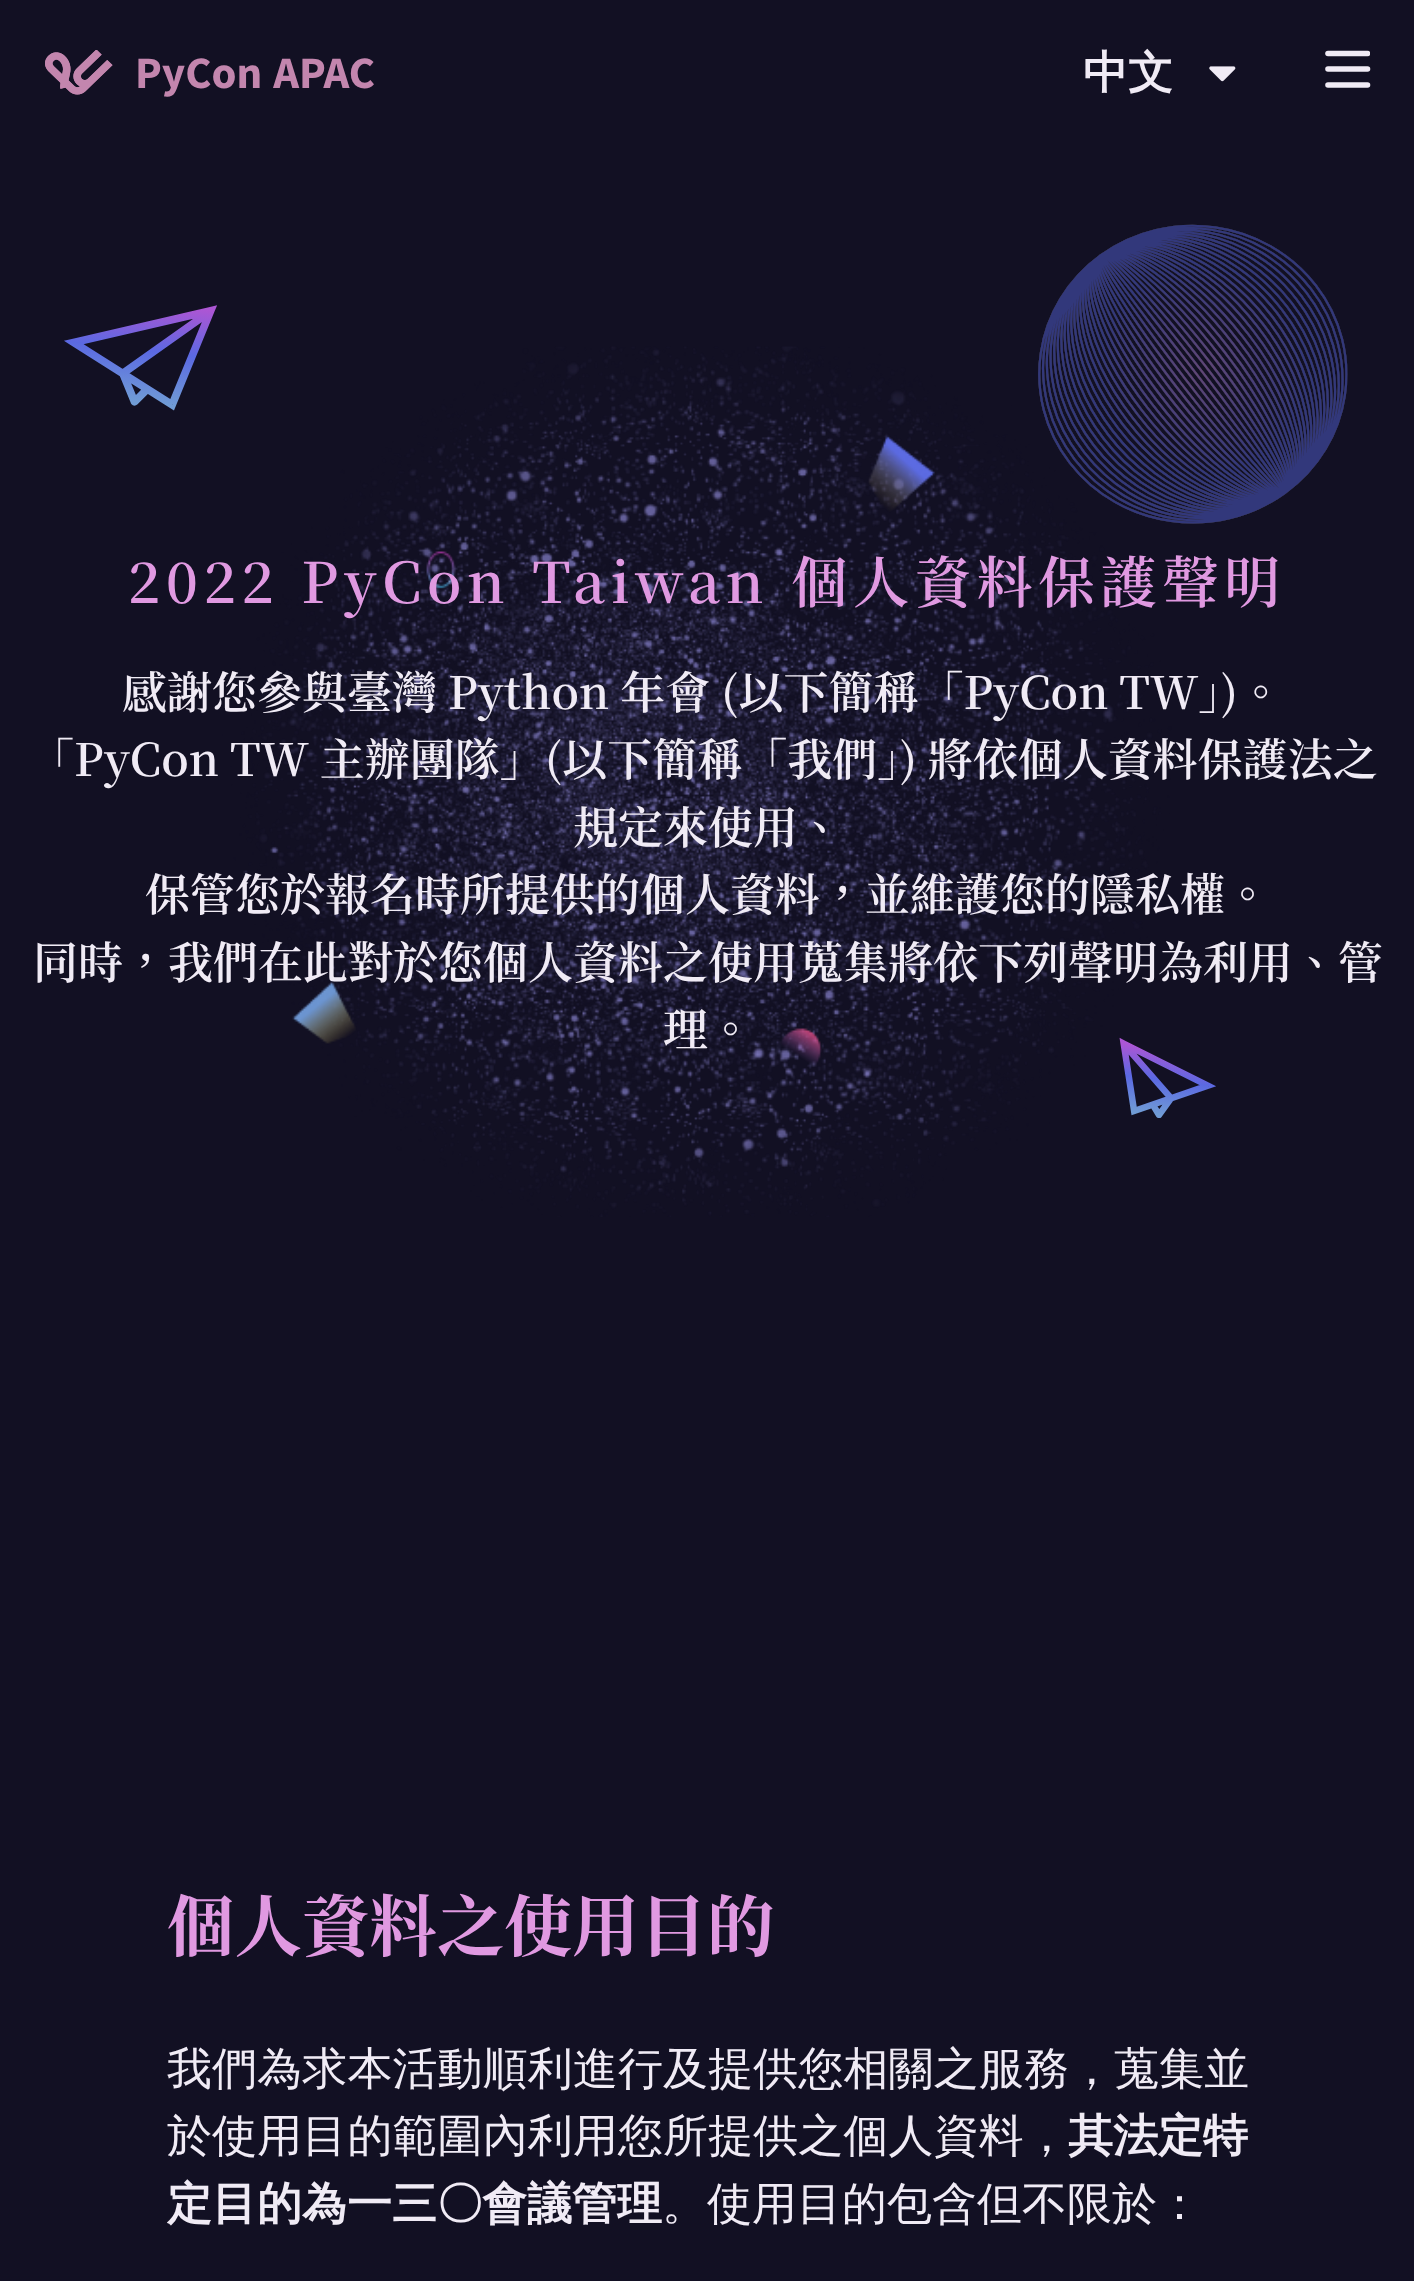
<?xml version="1.0" encoding="UTF-8"?>
<svg xmlns="http://www.w3.org/2000/svg" xmlns:xlink="http://www.w3.org/1999/xlink" width="1414" height="2281">
  <defs>
    <clipPath id="clip1"><rect x="1325" y="50" width="45" height="38" /></clipPath>
  </defs>
  <rect width="100%" height="100%" fill="#121023" />
  <image x="45" y="50" width="68" height="45" xlink:href="image1.png" />
  <image x="1209" y="66" width="27" height="16" xlink:href="image2.png" />
  <g clip-path="url(#clip1)">
    <path d="M 1328 53.5 h 39.5" fill="none" stroke="#f0ebf5" stroke-width="5.6" stroke-linecap="round" />
  </g>
  <path d="M 1328 69 h 39.5 m -39.5 16 h 39.5" fill="none" stroke="#f0ebf5" stroke-width="5.6" stroke-linecap="round" />
  <image x="64" y="224" width="1284" height="993" xlink:href="image3.png" />
  <text x="135" y="88" word-spacing="2" style="font-family: Source Sans Pro; font-size: 45px; font-weight: bold; fill: #c386ae">PyCon APAC</text>
  <text x="1083" y="88" style="font-family: WenQuanYi Zen Hei; font-size: 45px; font-weight: bold; fill: #f0ebf5">中文</text>
  <text x="128" y="603" word-spacing="2" style="font-family: Noto Serif TC; font-size: 56.25px; font-weight: 600; letter-spacing: 5.6px; fill: #e099e1">2022 PyCon Taiwan 個人資料保護聲明</text>
  <text x="122" y="709" word-spacing="-0.5" style="font-family: Noto Serif TC; font-size: 45px; font-weight: 600; fill: #f0ebf5">感謝您參與臺灣 Python 年會 (以下簡稱「PyCon TW」)。</text>
  <text x="29" y="776" word-spacing="-0.5" style="font-family: Noto Serif TC; font-size: 45px; font-weight: 600; fill: #f0ebf5">「PyCon TW 主辦團隊」(以下簡稱「我們」) 將依個人資料保護法之</text>
  <text x="573" y="844" style="font-family: Noto Serif TC; font-size: 45px; font-weight: 600; fill: #f0ebf5">規定來使用、</text>
  <text x="145" y="911" style="font-family: Noto Serif TC; font-size: 45px; font-weight: 600; fill: #f0ebf5">保管您於報名時所提供的個人資料，並維護您的隱私權。</text>
  <text x="33" y="979" style="font-family: Noto Serif TC; font-size: 45px; font-weight: 600; fill: #f0ebf5">同時，我們在此對於您個人資料之使用蒐集將依下列聲明為利用、管</text>
  <text x="663" y="1046" style="font-family: Noto Serif TC; font-size: 45px; font-weight: 600; fill: #f0ebf5">理。</text>
  <text x="167" y="1951" style="font-family: Noto Serif TC; font-size: 67.5px; font-weight: bold; fill: #e099e1">個人資料之使用目的</text>
  <text x="167" y="2084" style="font-family: WenQuanYi Zen Hei; font-size: 45px; font-weight: 500; letter-spacing: 0.1px; fill: #f0ebf5">我們為求本活動順利進行及提供您相關之服務，蒐集並</text>
  <text x="167" y="2151" style="font-family: WenQuanYi Zen Hei; font-size: 45px; font-weight: 500; letter-spacing: 0.1px; fill: #f0ebf5">於使用目的範圍內利用您所提供之個人資料，</text>
  <text x="1068" y="2151" style="font-family: WenQuanYi Zen Hei; font-size: 45px; font-weight: bold; fill: #f0ebf5">其法定特</text>
  <text x="167" y="2219" style="font-family: WenQuanYi Zen Hei; font-size: 45px; font-weight: bold; fill: #f0ebf5">定目的為一三〇會議管理</text>
  <text x="662" y="2219" style="font-family: WenQuanYi Zen Hei; font-size: 45px; font-weight: 500; fill: #f0ebf5">。使用目的包含但不限於：</text>
</svg>
